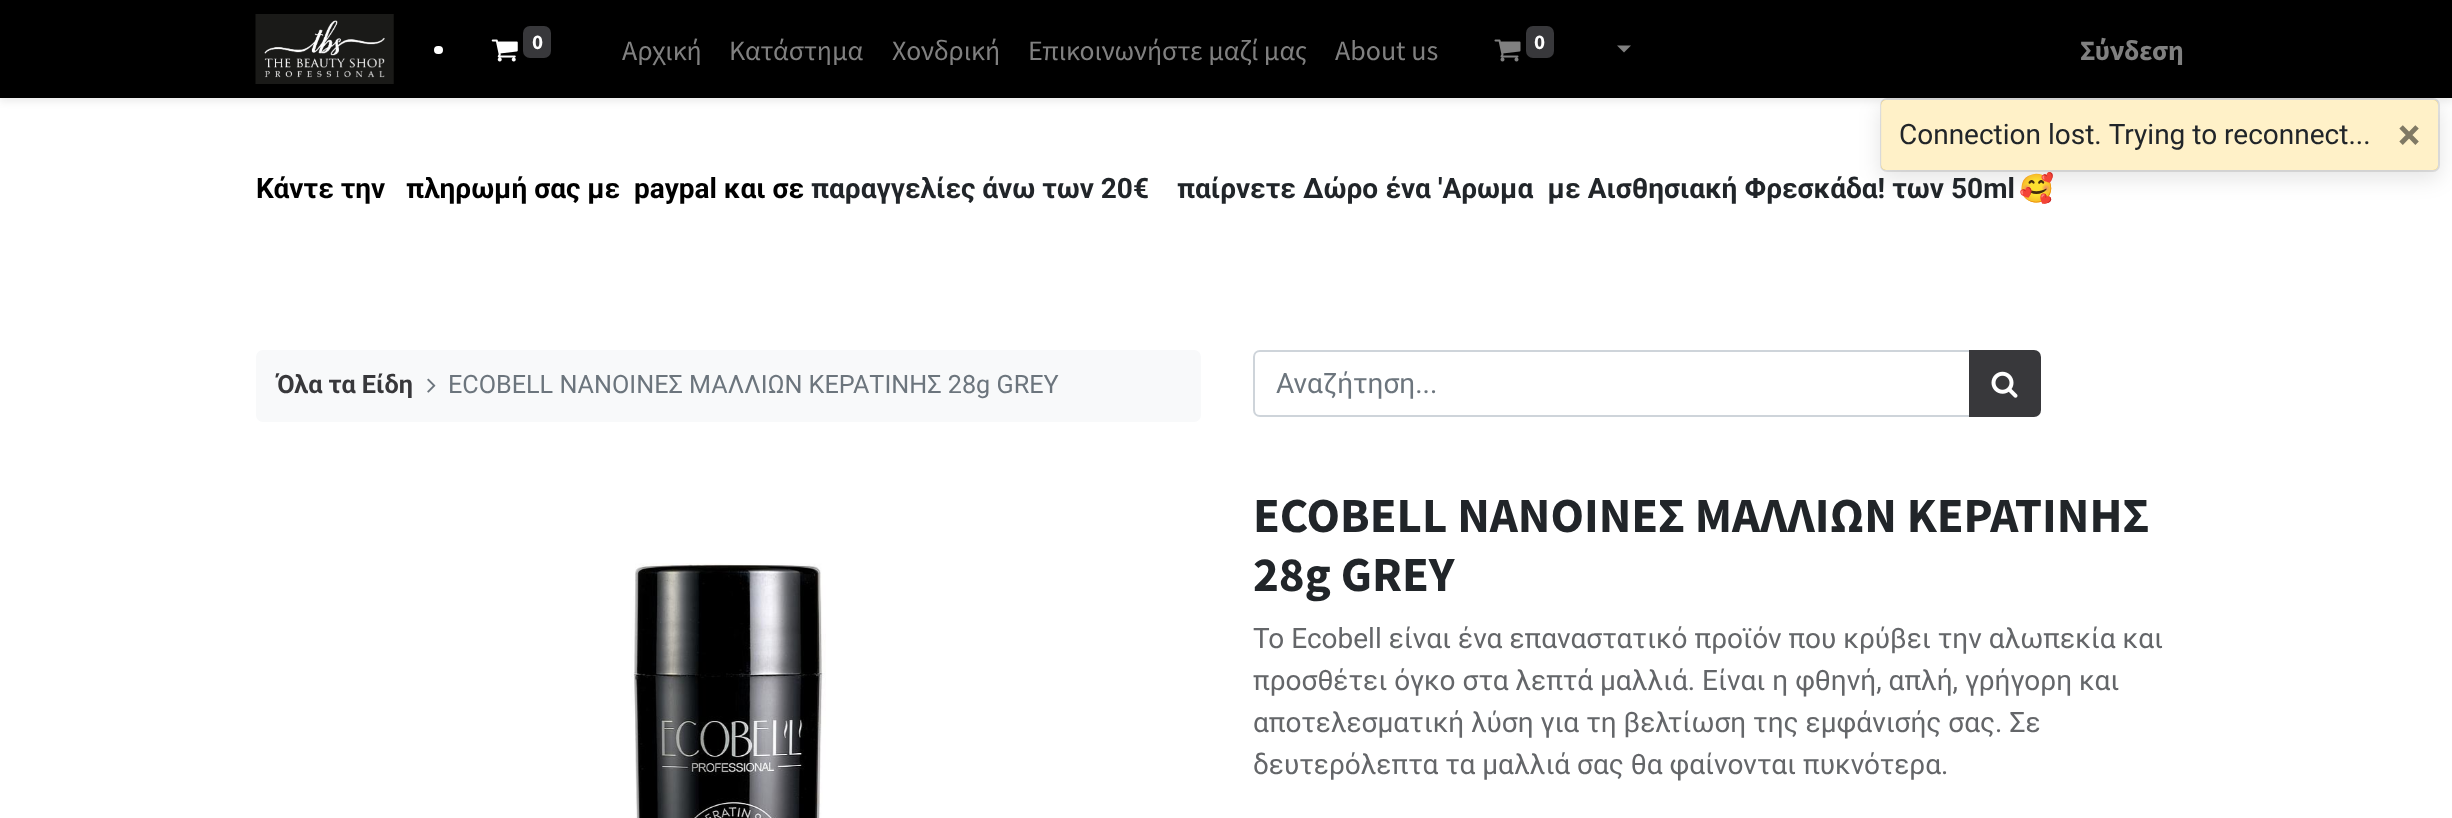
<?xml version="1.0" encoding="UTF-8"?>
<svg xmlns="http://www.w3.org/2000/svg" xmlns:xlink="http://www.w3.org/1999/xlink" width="2452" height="818">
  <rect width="100%" height="100%" fill="#ffffff" />
  <rect y="4" width="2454" height="98" fill="#000000" fill-opacity="0.07" filter="blur(3.5px)" />
  <rect width="2452" height="98" fill="#000000" />
  <image x="255" y="14" width="139" height="70" xlink:href="image1.png" />
  <rect x="434" y="46" width="9" height="8" rx="4" fill="#ffffff" />
  <image x="491" y="39" width="27" height="23" xlink:href="image2.png" />
  <rect x="523" y="26" width="28" height="32" rx="7" fill="#38383b" />
  <image x="1494" y="39" width="27" height="23" xlink:href="image3.png" />
  <rect x="1526" y="26" width="28" height="32" rx="7" fill="#38383b" />
  <path d="M 1617 45.5 h 14 l -7 7 z" fill="#808080" />
  <rect x="256" y="350" width="945" height="72" rx="7" fill="#f8f9fa" />
  <image x="427" y="378" width="9" height="15" xlink:href="image4.png" />
  <path d="M 1260 351 h 710 v 65 h -710 c -3.5 0 -6 -2.5 -6 -6 v -53 c 0 -3.5 2.5 -6 6 -6 z" fill="none" stroke="#ced4da" stroke-width="2" />
  <path d="M 1970 351 h 64 c 3.5 0 6 2.5 6 6 v 53 c 0 3.5 -2.5 6 -6 6 h -64 z" fill="#38383b" stroke="#38383b" stroke-width="2" />
  <image x="1991" y="371" width="27" height="27" xlink:href="image5.png" />
  <image x="631" y="563" width="195" height="255" xlink:href="image6.png" />
  <rect x="1880" y="105" width="560" height="74" rx="7" fill="#000000" fill-opacity="0.1" filter="blur(10.5px)" />
  <rect x="1881" y="100" width="557" height="70" rx="5" fill="#ffc107" />
  <rect x="1881" y="99" width="558" height="72" rx="6" fill="none" stroke="#000000" stroke-opacity="0.1" stroke-width="2" />
  <rect x="1881" y="100" width="557" height="70" rx="5" fill="#ffffff" fill-opacity="0.78" />
  <text x="532" y="49" style="font-family: Source Sans Pro; font-size: 21px; font-weight: bold; fill: #ffffff">0</text>
  <text x="622" y="60" style="font-family: Source Sans Pro; font-size: 28px; fill: #808080">Αρχική</text>
  <text x="729" y="60" style="font-family: Source Sans Pro; font-size: 28px; fill: #808080">Κατάστημα</text>
  <text x="892" y="60" style="font-family: Source Sans Pro; font-size: 28px; fill: #808080">Χονδρική</text>
  <text x="1028" y="60" style="font-family: Source Sans Pro; font-size: 28px; fill: #808080">Επικοινωνήστε μαζί μας</text>
  <text x="1335" y="60" style="font-family: Source Sans Pro; font-size: 28px; fill: #808080">About us</text>
  <text x="1534" y="49" style="font-family: Source Sans Pro; font-size: 21px; font-weight: bold; fill: #ffffff">0</text>
  <text x="2080" y="60" style="font-family: Source Sans Pro; font-size: 28px; font-weight: bold; fill: #808080">Σύνδεση</text>
  <text x="256" y="198" style="font-family: Roboto; font-size: 28px; font-weight: bold; fill: #000000" xml:space="preserve">Κάντε την   πληρωμή σας με  paypal και σε</text>
  <text x="811" y="198" style="font-family: Roboto; font-size: 28px; font-weight: bold; fill: #212529">παραγγελίες άνω των 20€</text>
  <text x="1177" y="198" word-spacing="0.25" style="font-family: Roboto; font-size: 28px; font-weight: bold; fill: #212529" xml:space="preserve">παίρνετε Δώρο ένα 'Aρωμα  με Αισθησιακή Φρεσκάδα! των 50ml</text>
  <text x="2019" y="198" style="font-family: Noto Color Emoji; font-size: 28px; font-weight: bold; fill: #000000">🥰</text>
  <text x="277" y="393" style="font-family: Roboto; font-size: 25.2px; font-weight: bold; fill: #38383b">Όλα τα Είδη</text>
  <text x="448" y="393" style="font-family: Roboto; font-size: 25.2px; fill: #6c757d">ECOBELL ΝΑΝΟΙΝΕΣ ΜΑΛΛΙΩΝ ΚΕΡΑΤΙΝΗΣ 28g GREY</text>
  <text x="1276" y="393" style="font-family: Roboto; font-size: 28px; fill: #6c757d">Αναζήτηση...</text>
  <text x="1253" y="532" style="font-family: Source Sans Pro; font-size: 49px; font-weight: bold; fill: #212529">ECOBELL ΝΑΝΟΙΝΕΣ ΜΑΛΛΙΩΝ ΚΕΡΑΤΙΝΗΣ</text>
  <text x="1253" y="591" style="font-family: Source Sans Pro; font-size: 49px; font-weight: bold; fill: #212529">28g GREY</text>
  <text x="1253" y="648" style="font-family: Roboto; font-size: 28px; fill: #646669">Το Ecobell είναι ένα επαναστατικό προϊόν που κρύβει την αλωπεκία και</text>
  <text x="1253" y="690" style="font-family: Roboto; font-size: 28px; fill: #646669">προσθέτει όγκο στα λεπτά μαλλιά. Είναι η φθηνή, απλή, γρήγορη και</text>
  <text x="1253" y="732" style="font-family: Roboto; font-size: 28px; fill: #646669">αποτελεσματική λύση για τη βελτίωση της εμφάνισής σας. Σε</text>
  <text x="1253" y="774" style="font-family: Roboto; font-size: 28px; fill: #646669">δευτερόλεπτα τα μαλλιά σας θα φαίνονται πυκνότερα.</text>
  <text x="1899" y="144" style="font-family: Roboto; font-size: 28px; fill: #212529">Connection lost. Trying to reconnect...</text>
  <text x="2398" y="149" style="font-family: Roboto; font-size: 42px; font-weight: bold; fill: #807964">×</text>
</svg>
